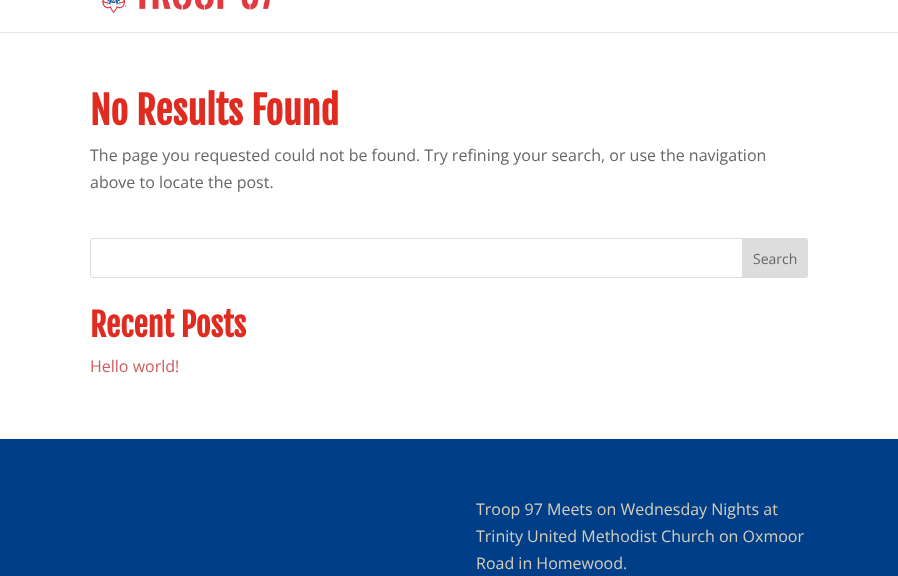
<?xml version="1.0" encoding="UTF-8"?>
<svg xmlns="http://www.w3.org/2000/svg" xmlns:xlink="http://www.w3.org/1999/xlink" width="898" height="576">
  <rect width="100%" height="100%" fill="#ffffff" />
  <rect y="32" width="898" height="1" fill="#e6e6e6" />
  <image x="102" y="0" width="168" height="14" xlink:href="image1.png" />
  <rect x="90.5" y="238.5" width="717" height="39" rx="2.5" fill="none" stroke="#dddddd" />
  <path d="M 742.5 238.5 h 62.5 c 1.5 0 2.5 1 2.5 2.5 v 34 c 0 1.5 -1 2.5 -2.5 2.5 h -62.5 z" fill="#dddddd" stroke="#dddddd" />
  <rect y="439" width="898" height="137" fill="#003f87" />
  <text x="90" y="125" style="font-family: Fjalla One; font-size: 38px; font-weight: bold; fill: #e02b20">No Results Found</text>
  <text x="90" y="161" style="font-family: Open Sans; font-size: 16px; fill: #666666">The page you requested could not be found. Try refining your search, or use the navigation</text>
  <text x="90" y="188" style="font-family: Open Sans; font-size: 16px; fill: #666666">above to locate the post.</text>
  <text x="753" y="264" style="font-family: Open Sans; font-size: 14px; fill: #666666">Search</text>
  <text x="90" y="337" style="font-family: Fjalla One; font-size: 32px; font-weight: bold; fill: #e02b20">Recent Posts</text>
  <text x="90" y="372" style="font-family: Open Sans; font-size: 16px; fill: #cd5c5c">Hello world!</text>
  <text x="476" y="515" style="font-family: Open Sans; font-size: 16px; fill: #d6cebd">Troop 97 Meets on Wednesday Nights at</text>
  <text x="476" y="542" style="font-family: Open Sans; font-size: 16px; fill: #d6cebd">Trinity United Methodist Church on Oxmoor</text>
  <text x="476" y="569" style="font-family: Open Sans; font-size: 16px; fill: #d6cebd">Road in Homewood.</text>
</svg>
